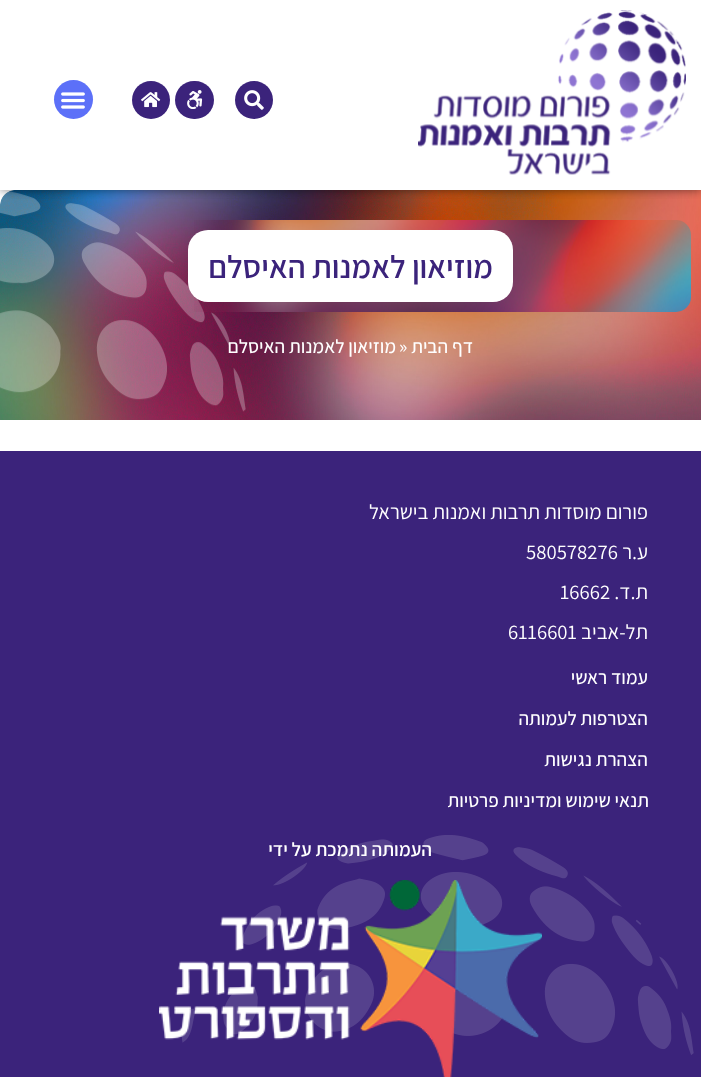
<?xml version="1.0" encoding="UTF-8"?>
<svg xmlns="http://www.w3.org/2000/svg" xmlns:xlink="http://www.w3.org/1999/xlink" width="701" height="1077">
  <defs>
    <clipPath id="clip1"><rect x="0" y="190" width="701" height="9" /></clipPath>
  </defs>
  <rect width="100%" height="100%" fill="#ffffff" />
  <image x="0" y="190" width="701" height="230" xlink:href="image6.png" />
  <g clip-path="url(#clip1)">
    <rect width="701" height="190" fill="#000000" fill-opacity="0.5" filter="blur(5px)" />
  </g>
  <image x="418" y="10" width="268" height="165" xlink:href="image1.png" />
  <circle cx="254" cy="100" r="19" fill="#3b237b" />
  <image x="244" y="90" width="20" height="20" xlink:href="image2.png" />
  <rect x="175" y="81" width="39" height="38" rx="19" fill="#3b237b" />
  <image x="187" y="90" width="16" height="19" xlink:href="image3.png" />
  <circle cx="151" cy="100" r="19" fill="#3b237b" />
  <image x="141" y="92" width="20" height="16" xlink:href="image4.png" />
  <circle cx="73.5" cy="99.5" r="19.5" fill="#5c70f8" />
  <image x="61" y="92" width="24" height="17" xlink:href="image5.png" />
  <image x="194" y="220" width="497" height="92" xlink:href="image7.png" />
  <rect x="188" y="230" width="325" height="72" rx="20" fill="#ffffff" />
  <rect y="451" width="701" height="626" fill="#3b237b" />
  <image x="181" y="835" width="513" height="220" xlink:href="image9.png" />
  <image x="159" y="880" width="383" height="197" xlink:href="image8.png" />
  <text x="493" y="278" style="font-family: Assistant; font-size: 32px; font-weight: 600; direction: rtl; fill: #3b237b">מוזיאון לאמנות האיסלם</text>
  <text x="473" y="353" style="font-family: Assistant; font-size: 19.25px; font-weight: 500; direction: rtl; fill: #ffffff">דף הבית</text>
  <text x="399" y="353" style="font-family: Assistant; font-size: 19.25px; font-weight: 500; fill: #ffffff">»</text>
  <text x="396" y="353" style="font-family: Assistant; font-size: 19.25px; font-weight: 500; direction: rtl; fill: #ffffff">מוזיאון לאמנות האיסלם</text>
  <text x="648" y="519" style="font-family: Assistant; font-size: 20.75px; direction: rtl; fill: #ffffff">פורום מוסדות תרבות ואמנות בישראל</text>
  <text x="648" y="559" style="font-family: Assistant; font-size: 20.75px; direction: rtl; fill: #ffffff">ע.ר</text>
  <text x="526" y="559" style="font-family: Assistant; font-size: 20.75px; fill: #ffffff">580578276</text>
  <text x="648" y="599" style="font-family: Assistant; font-size: 20.75px; direction: rtl; fill: #ffffff">ת.ד.</text>
  <text x="560" y="599" style="font-family: Assistant; font-size: 20.75px; fill: #ffffff">16662</text>
  <text x="648" y="639" style="font-family: Assistant; font-size: 20.75px; direction: rtl; fill: #ffffff">תל-אביב</text>
  <text x="508" y="639" style="font-family: Assistant; font-size: 20.75px; fill: #ffffff">6116601</text>
  <text x="648" y="684" style="font-family: Assistant; font-size: 19.25px; font-weight: 500; direction: rtl; fill: #ffffff">עמוד ראשי</text>
  <text x="648" y="725" style="font-family: Assistant; font-size: 19.25px; font-weight: 500; direction: rtl; fill: #ffffff">הצטרפות לעמותה</text>
  <text x="648" y="766" style="font-family: Assistant; font-size: 19.25px; font-weight: 500; direction: rtl; fill: #ffffff">הצהרת נגישות</text>
  <text x="649" y="807" style="font-family: Assistant; font-size: 19.25px; font-weight: 500; direction: rtl; fill: #ffffff">תנאי שימוש ומדיניות פרטיות</text>
  <text x="432" y="856" style="font-family: Assistant; font-size: 19.25px; font-weight: 600; direction: rtl; fill: #ffffff">העמותה נתמכת על ידי</text>
</svg>
